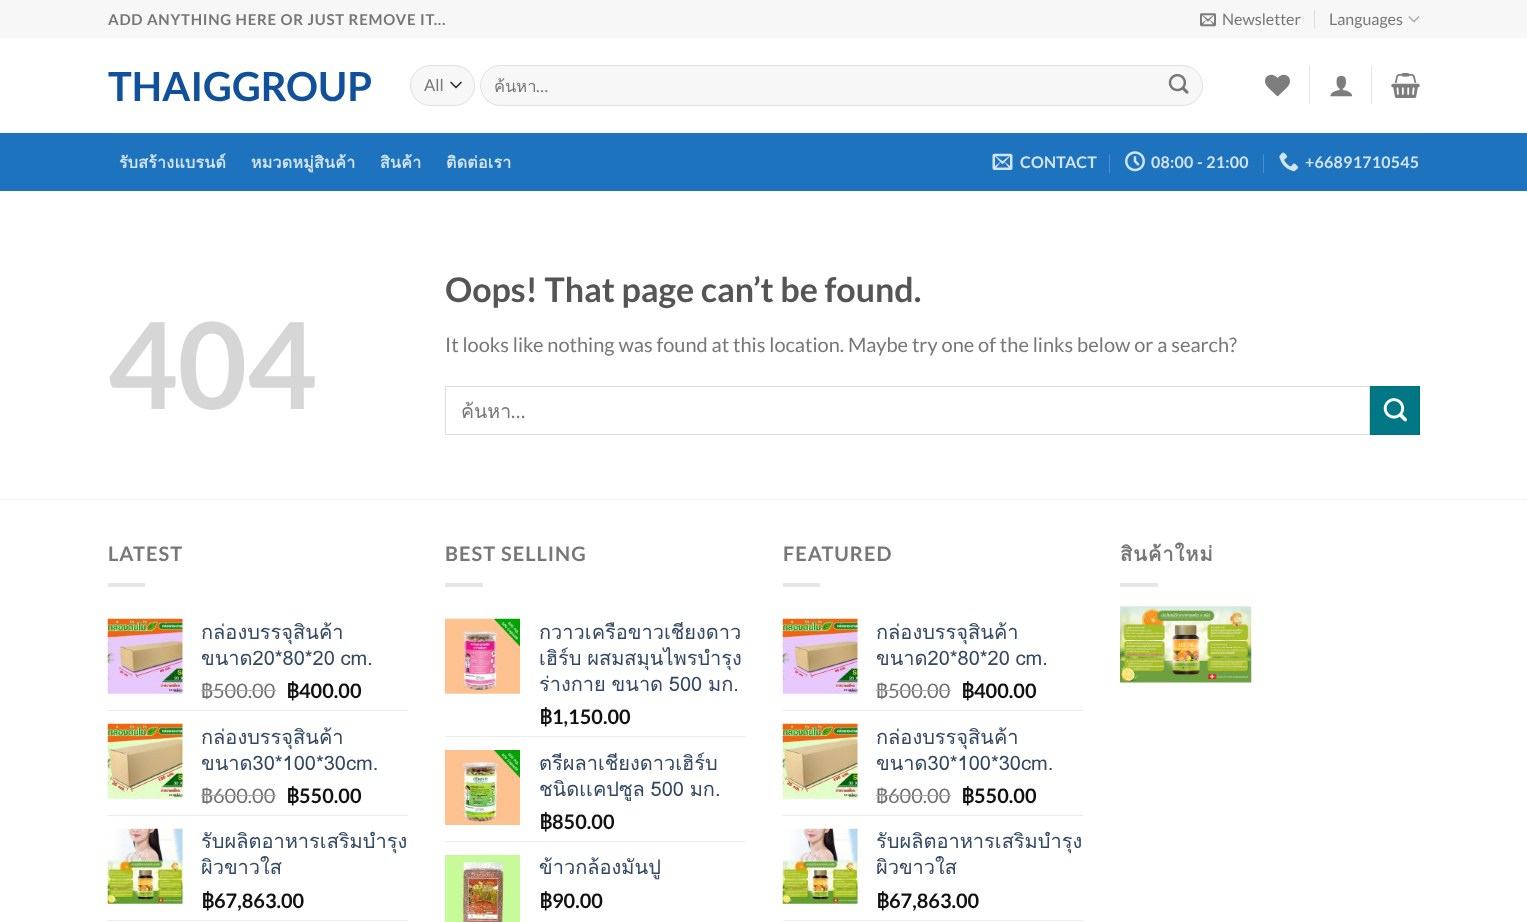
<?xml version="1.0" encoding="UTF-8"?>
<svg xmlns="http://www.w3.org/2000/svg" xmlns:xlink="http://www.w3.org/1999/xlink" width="1527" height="922">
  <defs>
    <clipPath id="clip1"><rect x="494" y="73" width="690" height="26" /></clipPath>
    <clipPath id="clip2"><rect x="461" y="395" width="889" height="31" /></clipPath>
    <clipPath id="clip3"><rect x="201" y="829" width="207" height="51" /></clipPath>
    <clipPath id="clip4"><rect x="539" y="619" width="206" height="77" /></clipPath>
    <clipPath id="clip5"><rect x="539" y="750" width="206" height="51" /></clipPath>
    <clipPath id="clip6"><rect x="539" y="855" width="206" height="25" /></clipPath>
    <clipPath id="clip7"><rect x="876" y="829" width="207" height="51" /></clipPath>
  </defs>
  <rect width="100%" height="100%" fill="#ffffff" />
  <rect width="1527" height="38" fill="#f7f7f7" />
  <image x="1200" y="13" width="16" height="14" xlink:href="image1.png" />
  <rect x="1314" y="10" width="1" height="19" fill="#dedede" />
  <image x="1408" y="16" width="12" height="7" xlink:href="image2.png" />
  <rect x="410" y="65" width="65" height="41" rx="20.5" fill="#f7f7f7" />
  <path d="M 451 82.5 l 5 5 l 5 -5" fill="none" stroke="#333333" stroke-width="1.7" stroke-linecap="round" stroke-linejoin="round" />
  <rect x="410.5" y="65.5" width="64" height="40" rx="20" fill="none" stroke="#000000" stroke-opacity="0.09" />
  <rect x="480" y="65" width="723" height="41" rx="20.5" fill="#f7f7f7" />
  <rect x="480.5" y="65.5" width="722" height="40" rx="20" fill="none" stroke="#000000" stroke-opacity="0.09" />
  <image x="1168" y="74" width="21" height="20" xlink:href="image3.png" />
  <image x="1265" y="74" width="25" height="23" xlink:href="image4.png" />
  <rect x="1309" y="66" width="1" height="38" fill="#e6e6e6" />
  <image x="1330" y="75" width="23" height="22" xlink:href="image5.png" />
  <rect x="1371" y="66" width="1" height="38" fill="#e6e6e6" />
  <image x="1391" y="73" width="29" height="25" xlink:href="image6.png" />
  <rect y="133" width="1527" height="58" fill="#1e73be" />
  <rect x="108" y="133" width="1312" height="1" fill="#2773b7" />
  <image x="992" y="153" width="21" height="17" xlink:href="image7.png" />
  <rect x="1109" y="154" width="1" height="19" fill="#4b8fcb" />
  <image x="1125" y="151" width="20" height="21" xlink:href="image8.png" />
  <rect x="1263" y="154" width="1" height="19" fill="#4b8fcb" />
  <image x="1279" y="152" width="20" height="20" xlink:href="image9.png" />
  <rect x="445.5" y="386.5" width="924" height="48" fill="none" stroke="#dddddd" />
  <rect x="1370.5" y="386.5" width="49" height="48" fill="#007784" stroke="#00717d" />
  <image x="1383" y="398" width="24" height="24" xlink:href="image10.png" />
  <rect y="499" width="1527" height="1" fill="#f2f2f2" />
  <rect x="108" y="583" width="37" height="4" fill="#e6e6e6" />
  <image x="107" y="618" width="76" height="76" xlink:href="image11.png" />
  <rect x="108" y="710" width="300" height="1" fill="#ececec" />
  <image x="107" y="723" width="76" height="76" xlink:href="image12.png" />
  <rect x="108" y="815" width="300" height="1" fill="#ececec" />
  <image x="107" y="828" width="76" height="76" xlink:href="image13.png" />
  <rect x="108" y="920" width="300" height="1" fill="#ececec" />
  <rect x="445" y="583" width="38" height="4" fill="#e6e6e6" />
  <image x="445" y="618" width="75" height="76" xlink:href="image14.png" />
  <rect x="445" y="736" width="300" height="1" fill="#ececec" />
  <image x="445" y="750" width="75" height="75" xlink:href="image15.png" />
  <rect x="445" y="841" width="300" height="1" fill="#ececec" />
  <image x="445" y="855" width="75" height="67" xlink:href="image16.png" />
  <rect x="783" y="583" width="37" height="4" fill="#e6e6e6" />
  <image x="782" y="618" width="76" height="76" xlink:href="image17.png" />
  <rect x="783" y="710" width="300" height="1" fill="#ececec" />
  <image x="782" y="723" width="76" height="76" xlink:href="image18.png" />
  <rect x="783" y="815" width="300" height="1" fill="#ececec" />
  <image x="782" y="828" width="76" height="76" xlink:href="image19.png" />
  <rect x="783" y="920" width="300" height="1" fill="#ececec" />
  <rect x="1120" y="583" width="38" height="4" fill="#e6e6e6" />
  <image x="1120" y="606" width="132" height="77" xlink:href="image20.png" />
  <text x="108" y="25" style="font-family: Lato; font-size: 15px; font-weight: bold; letter-spacing: 0.75px; fill: #777777">ADD ANYTHING HERE OR JUST REMOVE IT...</text>
  <text x="1222" y="25" style="font-family: Lato; font-size: 16px; fill: #777777">Newsletter</text>
  <text x="1329" y="25" style="font-family: Lato; font-size: 16px; fill: #777777">Languages</text>
  <text x="108" y="101" style="font-family: Lato; font-size: 40px; font-weight: bold; fill: #11519b">THAIGGROUP</text>
  <text x="424" y="91" style="font-family: Lato; font-size: 16.5px; fill: #777777">All</text>
  <g clip-path="url(#clip1)">
    <text x="494" y="92" style="font-family: Loma; font-size: 16.5px; fill: #777777">ค้นหา</text>
  </g>
  <text x="536" y="92" style="font-family: Lato; font-size: 16.5px; fill: #777777">…</text>
  <text x="119" y="168" style="font-family: Loma; font-size: 16px; font-weight: bold; letter-spacing: 0.25px; fill: #d2e3f2">รับสร้างแบรนด์</text>
  <text x="251" y="168" style="font-family: Loma; font-size: 16px; font-weight: bold; letter-spacing: 0.25px; fill: #d2e3f2">หมวดหมู่สินค้า</text>
  <text x="380" y="168" style="font-family: Loma; font-size: 16px; font-weight: bold; letter-spacing: 0.25px; fill: #d2e3f2">สินค้า</text>
  <text x="446" y="168" style="font-family: Loma; font-size: 16px; font-weight: bold; letter-spacing: 0.25px; fill: #d2e3f2">ติดต่อเรา</text>
  <text x="1020" y="168" style="font-family: Lato; font-size: 16px; font-weight: bold; letter-spacing: 0.25px; fill: #d2e3f2">CONTACT</text>
  <text x="1151" y="168" style="font-family: Lato; font-size: 16px; font-weight: bold; letter-spacing: 0.25px; fill: #d2e3f2">08:00 - 21:00</text>
  <text x="1305" y="168" style="font-family: Lato; font-size: 16px; font-weight: bold; letter-spacing: 0.25px; fill: #d2e3f2">+66891710545</text>
  <text x="108" y="409" style="font-family: Lato; font-size: 120px; font-weight: bold; fill: #d6d6d6">404</text>
  <text x="445" y="302" style="font-family: Lato; font-size: 34px; font-weight: bold; fill: #555555">Oops! That page can’t be found.</text>
  <text x="445" y="352" style="font-family: Lato; font-size: 20px; fill: #777777">It looks like nothing was found at this location. Maybe try one of the links below or a search?</text>
  <g clip-path="url(#clip2)">
    <text x="461" y="418" style="font-family: Loma; font-size: 19.5px; fill: #777777">ค้นหา</text>
  </g>
  <text x="511" y="418" style="font-family: Lato; font-size: 19.5px; fill: #777777">…</text>
  <text x="108" y="561" style="font-family: Lato; font-size: 20px; font-weight: bold; letter-spacing: 1px; fill: #777777">LATEST</text>
  <text x="201" y="639" style="font-family: Loma; font-size: 20px; fill: #334862">กล่องบรรจุสินค้า</text>
  <text x="201" y="665" word-spacing="-1" style="font-family: Loma; font-size: 20px; fill: #334862">ขนาด20*80*20 cm.</text>
  <text x="201" y="698" style="font-family: Loma; font-size: 20px; fill: #707070">฿</text>
  <rect x="201" y="690" width="13" height="1" fill="#adadad" />
  <text x="213" y="698" style="font-family: Lato; font-size: 20px; fill: #707070">500.00</text>
  <rect x="214" y="690" width="62" height="1" fill="#adadad" />
  <text x="286" y="698" style="font-family: 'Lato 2'; font-size: 20px; font-weight: bold; fill: #111111">฿</text>
  <text x="299" y="698" style="font-family: Lato; font-size: 20px; font-weight: bold; fill: #111111">400.00</text>
  <text x="201" y="744" style="font-family: Loma; font-size: 20px; fill: #334862">กล่องบรรจุสินค้า</text>
  <text x="201" y="770" style="font-family: Loma; font-size: 20px; fill: #334862">ขนาด30*100*30cm.</text>
  <text x="201" y="803" style="font-family: Loma; font-size: 20px; fill: #707070">฿</text>
  <rect x="201" y="795" width="13" height="1" fill="#adadad" />
  <text x="213" y="803" style="font-family: Lato; font-size: 20px; fill: #707070">600.00</text>
  <rect x="214" y="795" width="62" height="1" fill="#adadad" />
  <text x="286" y="803" style="font-family: 'Lato 2'; font-size: 20px; font-weight: bold; fill: #111111">฿</text>
  <text x="299" y="803" style="font-family: Lato; font-size: 20px; font-weight: bold; fill: #111111">550.00</text>
  <g clip-path="url(#clip3)">
    <text x="201" y="848" style="font-family: Loma; font-size: 20px; fill: #334862">รับผลิตอาหารเสริมบำรุง</text>
    <text x="201" y="874" style="font-family: Loma; font-size: 20px; fill: #334862">ผิวขาวใส</text>
  </g>
  <text x="201" y="908" style="font-family: 'Lato 2'; font-size: 20px; font-weight: bold; fill: #111111">฿</text>
  <text x="214" y="908" style="font-family: Lato; font-size: 20px; font-weight: bold; fill: #111111">67,863.00</text>
  <text x="445" y="561" style="font-family: Lato; font-size: 20px; font-weight: bold; letter-spacing: 1px; fill: #777777">BEST SELLING</text>
  <text x="539" y="639" style="font-family: Loma; font-size: 20px; fill: #334862">กวาวเครือขาวเชียงดาว</text>
  <g clip-path="url(#clip4)">
    <text x="539" y="665" word-spacing="-1" style="font-family: Loma; font-size: 20px; fill: #334862">เฮิร์บ ผสมสมุนไพรบำรุง</text>
    <text x="539" y="691" word-spacing="-1" style="font-family: Loma; font-size: 20px; fill: #334862">ร่างกาย ขนาด 500 มก.</text>
  </g>
  <text x="539" y="724" style="font-family: 'Lato 2'; font-size: 20px; font-weight: bold; fill: #111111">฿</text>
  <text x="552" y="724" style="font-family: Lato; font-size: 20px; font-weight: bold; fill: #111111">1,150.00</text>
  <text x="539" y="770" style="font-family: Loma; font-size: 20px; fill: #334862">ตรีผลาเชียงดาวเฮิร์บ</text>
  <g clip-path="url(#clip5)">
    <text x="539" y="796" word-spacing="-1" style="font-family: Loma; font-size: 20px; fill: #334862">ชนิดเเคปซูล 500 มก.</text>
  </g>
  <text x="539" y="829" style="font-family: 'Lato 2'; font-size: 20px; font-weight: bold; fill: #111111">฿</text>
  <text x="552" y="829" style="font-family: Lato; font-size: 20px; font-weight: bold; fill: #111111">850.00</text>
  <g clip-path="url(#clip6)">
    <text x="539" y="874" style="font-family: Loma; font-size: 20px; fill: #334862">ข้าวกล้องมันปู</text>
  </g>
  <text x="539" y="908" style="font-family: 'Lato 2'; font-size: 20px; font-weight: bold; fill: #111111">฿</text>
  <text x="552" y="908" style="font-family: Lato; font-size: 20px; font-weight: bold; fill: #111111">90.00</text>
  <text x="783" y="561" style="font-family: Lato; font-size: 20px; font-weight: bold; letter-spacing: 1px; fill: #777777">FEATURED</text>
  <text x="876" y="639" style="font-family: Loma; font-size: 20px; fill: #334862">กล่องบรรจุสินค้า</text>
  <text x="876" y="665" word-spacing="-1" style="font-family: Loma; font-size: 20px; fill: #334862">ขนาด20*80*20 cm.</text>
  <text x="876" y="698" style="font-family: Loma; font-size: 20px; fill: #707070">฿</text>
  <rect x="876" y="690" width="13" height="1" fill="#adadad" />
  <text x="888" y="698" style="font-family: Lato; font-size: 20px; fill: #707070">500.00</text>
  <rect x="889" y="690" width="62" height="1" fill="#adadad" />
  <text x="961" y="698" style="font-family: 'Lato 2'; font-size: 20px; font-weight: bold; fill: #111111">฿</text>
  <text x="974" y="698" style="font-family: Lato; font-size: 20px; font-weight: bold; fill: #111111">400.00</text>
  <text x="876" y="744" style="font-family: Loma; font-size: 20px; fill: #334862">กล่องบรรจุสินค้า</text>
  <text x="876" y="770" style="font-family: Loma; font-size: 20px; fill: #334862">ขนาด30*100*30cm.</text>
  <text x="876" y="803" style="font-family: Loma; font-size: 20px; fill: #707070">฿</text>
  <rect x="876" y="795" width="13" height="1" fill="#adadad" />
  <text x="888" y="803" style="font-family: Lato; font-size: 20px; fill: #707070">600.00</text>
  <rect x="889" y="795" width="62" height="1" fill="#adadad" />
  <text x="961" y="803" style="font-family: 'Lato 2'; font-size: 20px; font-weight: bold; fill: #111111">฿</text>
  <text x="974" y="803" style="font-family: Lato; font-size: 20px; font-weight: bold; fill: #111111">550.00</text>
  <g clip-path="url(#clip7)">
    <text x="876" y="848" style="font-family: Loma; font-size: 20px; fill: #334862">รับผลิตอาหารเสริมบำรุง</text>
    <text x="876" y="874" style="font-family: Loma; font-size: 20px; fill: #334862">ผิวขาวใส</text>
  </g>
  <text x="876" y="908" style="font-family: 'Lato 2'; font-size: 20px; font-weight: bold; fill: #111111">฿</text>
  <text x="889" y="908" style="font-family: Lato; font-size: 20px; font-weight: bold; fill: #111111">67,863.00</text>
  <text x="1120" y="561" style="font-family: Loma; font-size: 20px; font-weight: bold; letter-spacing: 1px; fill: #777777">สินค้าใหม่</text>
</svg>
